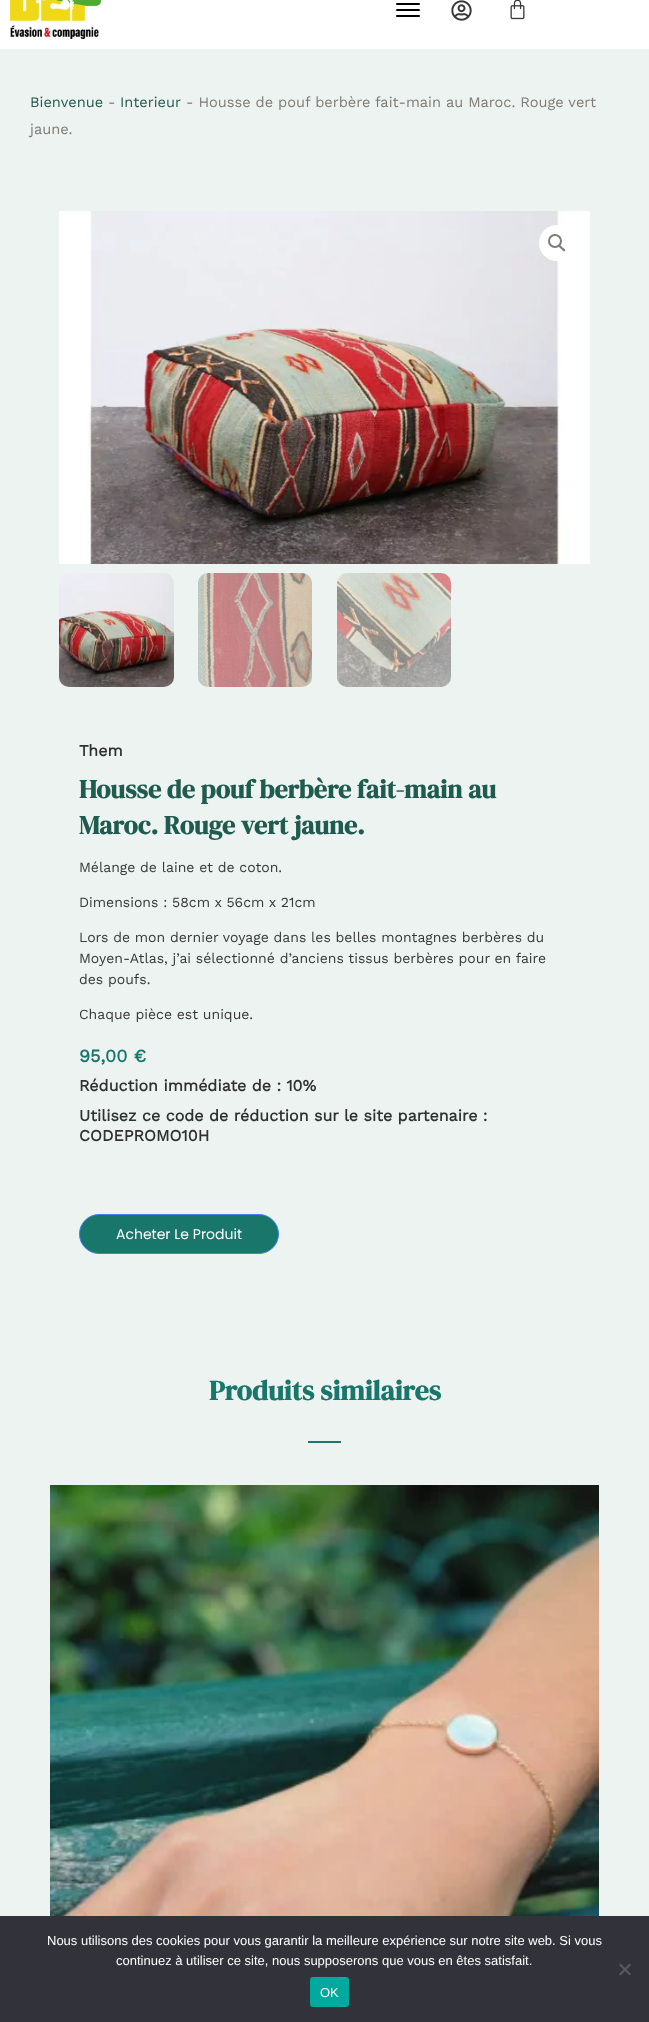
<?xml version="1.0" encoding="UTF-8"?>
<svg xmlns="http://www.w3.org/2000/svg" xmlns:xlink="http://www.w3.org/1999/xlink" width="649" height="2022">
  <rect width="100%" height="100%" fill="#ecf3f0" />
  <rect width="649" height="49" fill="#ffffff" />
  <image x="10" y="0" width="91" height="39" xlink:href="image1.png" />
  <rect x="396" y="3" width="24" height="2" rx="1" fill="#000000" />
  <rect x="396" y="9" width="24" height="2" rx="1" fill="#000000" />
  <rect x="396" y="15" width="24" height="2" rx="1" fill="#000000" />
  <image x="451" y="0" width="21" height="21" xlink:href="image2.png" />
  <image x="510" y="0" width="15" height="20" xlink:href="image3.png" />
  <image x="59" y="211" width="531" height="353" xlink:href="image4.png" />
  <circle cx="557" cy="243" r="18" fill="#ffffff" />
  <circle cx="555" cy="241" r="6" fill="none" stroke="#7f7c76" stroke-width="2" />
  <path d="M 559 245.5 c 1.5 -1 3 1.5 3.5 2 c 1 0.5 3.5 2.5 2.5 3.5 c -1.5 1.5 -3 -1.5 -3.5 -2 c -1 -0.5 -3.5 -2.5 -2.5 -3.5 z" fill="#7f7c76" />
  <image x="59" y="573" width="115" height="114" xlink:href="image5.png" />
  <image x="198" y="573" width="114" height="114" xlink:href="image6.png" />
  <image x="337" y="573" width="114" height="114" xlink:href="image7.png" />
  <rect x="79.5" y="1214.5" width="199" height="39" rx="19.5" fill="#18766a" stroke="#467ff7" />
  <rect x="308" y="1441" width="33" height="2" fill="#18766a" />
  <image x="50" y="1485" width="549" height="431" xlink:href="image8.png" />
  <rect y="1916" width="649" height="106" fill="#32323a" />
  <path d="M 629.5 1963.5 l 1.5 1.5 l -10.5 10.5 l -1.5 -1.5 z" fill="#59595d" />
  <path d="M 619 1965 l 1.5 -1.5 l 10.5 10.5 l -1.5 1.5 z" fill="#59595d" />
  <rect x="310" y="1977" width="39" height="30" rx="3" fill="#00a99d" />
  <text x="30" y="107" style="font-family: Work Sans; font-size: 14.6px; fill: #205b4f">Bienvenue</text>
  <text x="108" y="107" style="font-family: Work Sans; font-size: 14.6px; fill: #7f7c76">-</text>
  <text x="120" y="107" style="font-family: Work Sans; font-size: 14.6px; fill: #205b4f">Interieur</text>
  <text x="186" y="107" style="font-family: Work Sans; font-size: 14.6px; fill: #7f7c76">- Housse de pouf berbère fait-main au Maroc. Rouge vert</text>
  <text x="30" y="134" style="font-family: Work Sans; font-size: 14.6px; fill: #7f7c76">jaune.</text>
  <text x="79" y="756" style="font-family: Work Sans; font-size: 16px; font-weight: bold; fill: #313131">Them</text>
  <text x="79" y="798" style="font-family: DM Serif Display; font-size: 26px; font-weight: bold; fill: #205b4f">Housse de pouf berbère fait-main au</text>
  <text x="79" y="834" style="font-family: DM Serif Display; font-size: 26px; font-weight: bold; fill: #205b4f">Maroc. Rouge vert jaune.</text>
  <text x="79" y="872" style="font-family: Work Sans; font-size: 14px; fill: #383838">Mélange de laine et de coton.</text>
  <text x="79" y="907" style="font-family: Work Sans; font-size: 14px; fill: #383838">Dimensions : 58cm x 56cm x 21cm</text>
  <text x="79" y="942" style="font-family: Work Sans; font-size: 14px; fill: #383838">Lors de mon dernier voyage dans les belles montagnes berbères du</text>
  <text x="79" y="963" style="font-family: Work Sans; font-size: 14px; fill: #383838">Moyen-Atlas, j’ai sélectionné d’anciens tissus berbères pour en faire</text>
  <text x="79" y="984" style="font-family: Work Sans; font-size: 14px; fill: #383838">des poufs.</text>
  <text x="79" y="1019" style="font-family: Work Sans; font-size: 14px; fill: #383838">Chaque pièce est unique.</text>
  <text x="79" y="1062" style="font-family: Work Sans; font-size: 18px; font-weight: bold; fill: #18766a">95,00 €</text>
  <text x="79" y="1091" style="font-family: Work Sans; font-size: 16px; font-weight: bold; fill: #313131">Réduction immédiate de : 10%</text>
  <text x="79" y="1121" style="font-family: Work Sans; font-size: 16px; font-weight: bold; fill: #313131">Utilisez ce code de réduction sur le site partenaire :</text>
  <text x="79" y="1141" style="font-family: Work Sans; font-size: 16px; font-weight: bold; fill: #313131">CODEPROMO10H</text>
  <text x="116" y="1239" style="font-family: Poppins; font-size: 14px; fill: #ffffff">Acheter Le Produit</text>
  <text x="209" y="1400" style="font-family: DM Serif Display; font-size: 28px; font-weight: bold; fill: #18766a">Produits similaires</text>
  <text x="47" y="1945" style="font-family: Liberation Sans; font-size: 13px; fill: #ffffff">Nous utilisons des cookies pour vous garantir la meilleure expérience sur notre site web. Si vous</text>
  <text x="116" y="1965" style="font-family: Liberation Sans; font-size: 13px; fill: #ffffff">continuez à utiliser ce site, nous supposerons que vous en êtes satisfait.</text>
  <text x="320" y="1997" style="font-family: Liberation Sans; font-size: 13px; fill: #ffffff">OK</text>
</svg>
